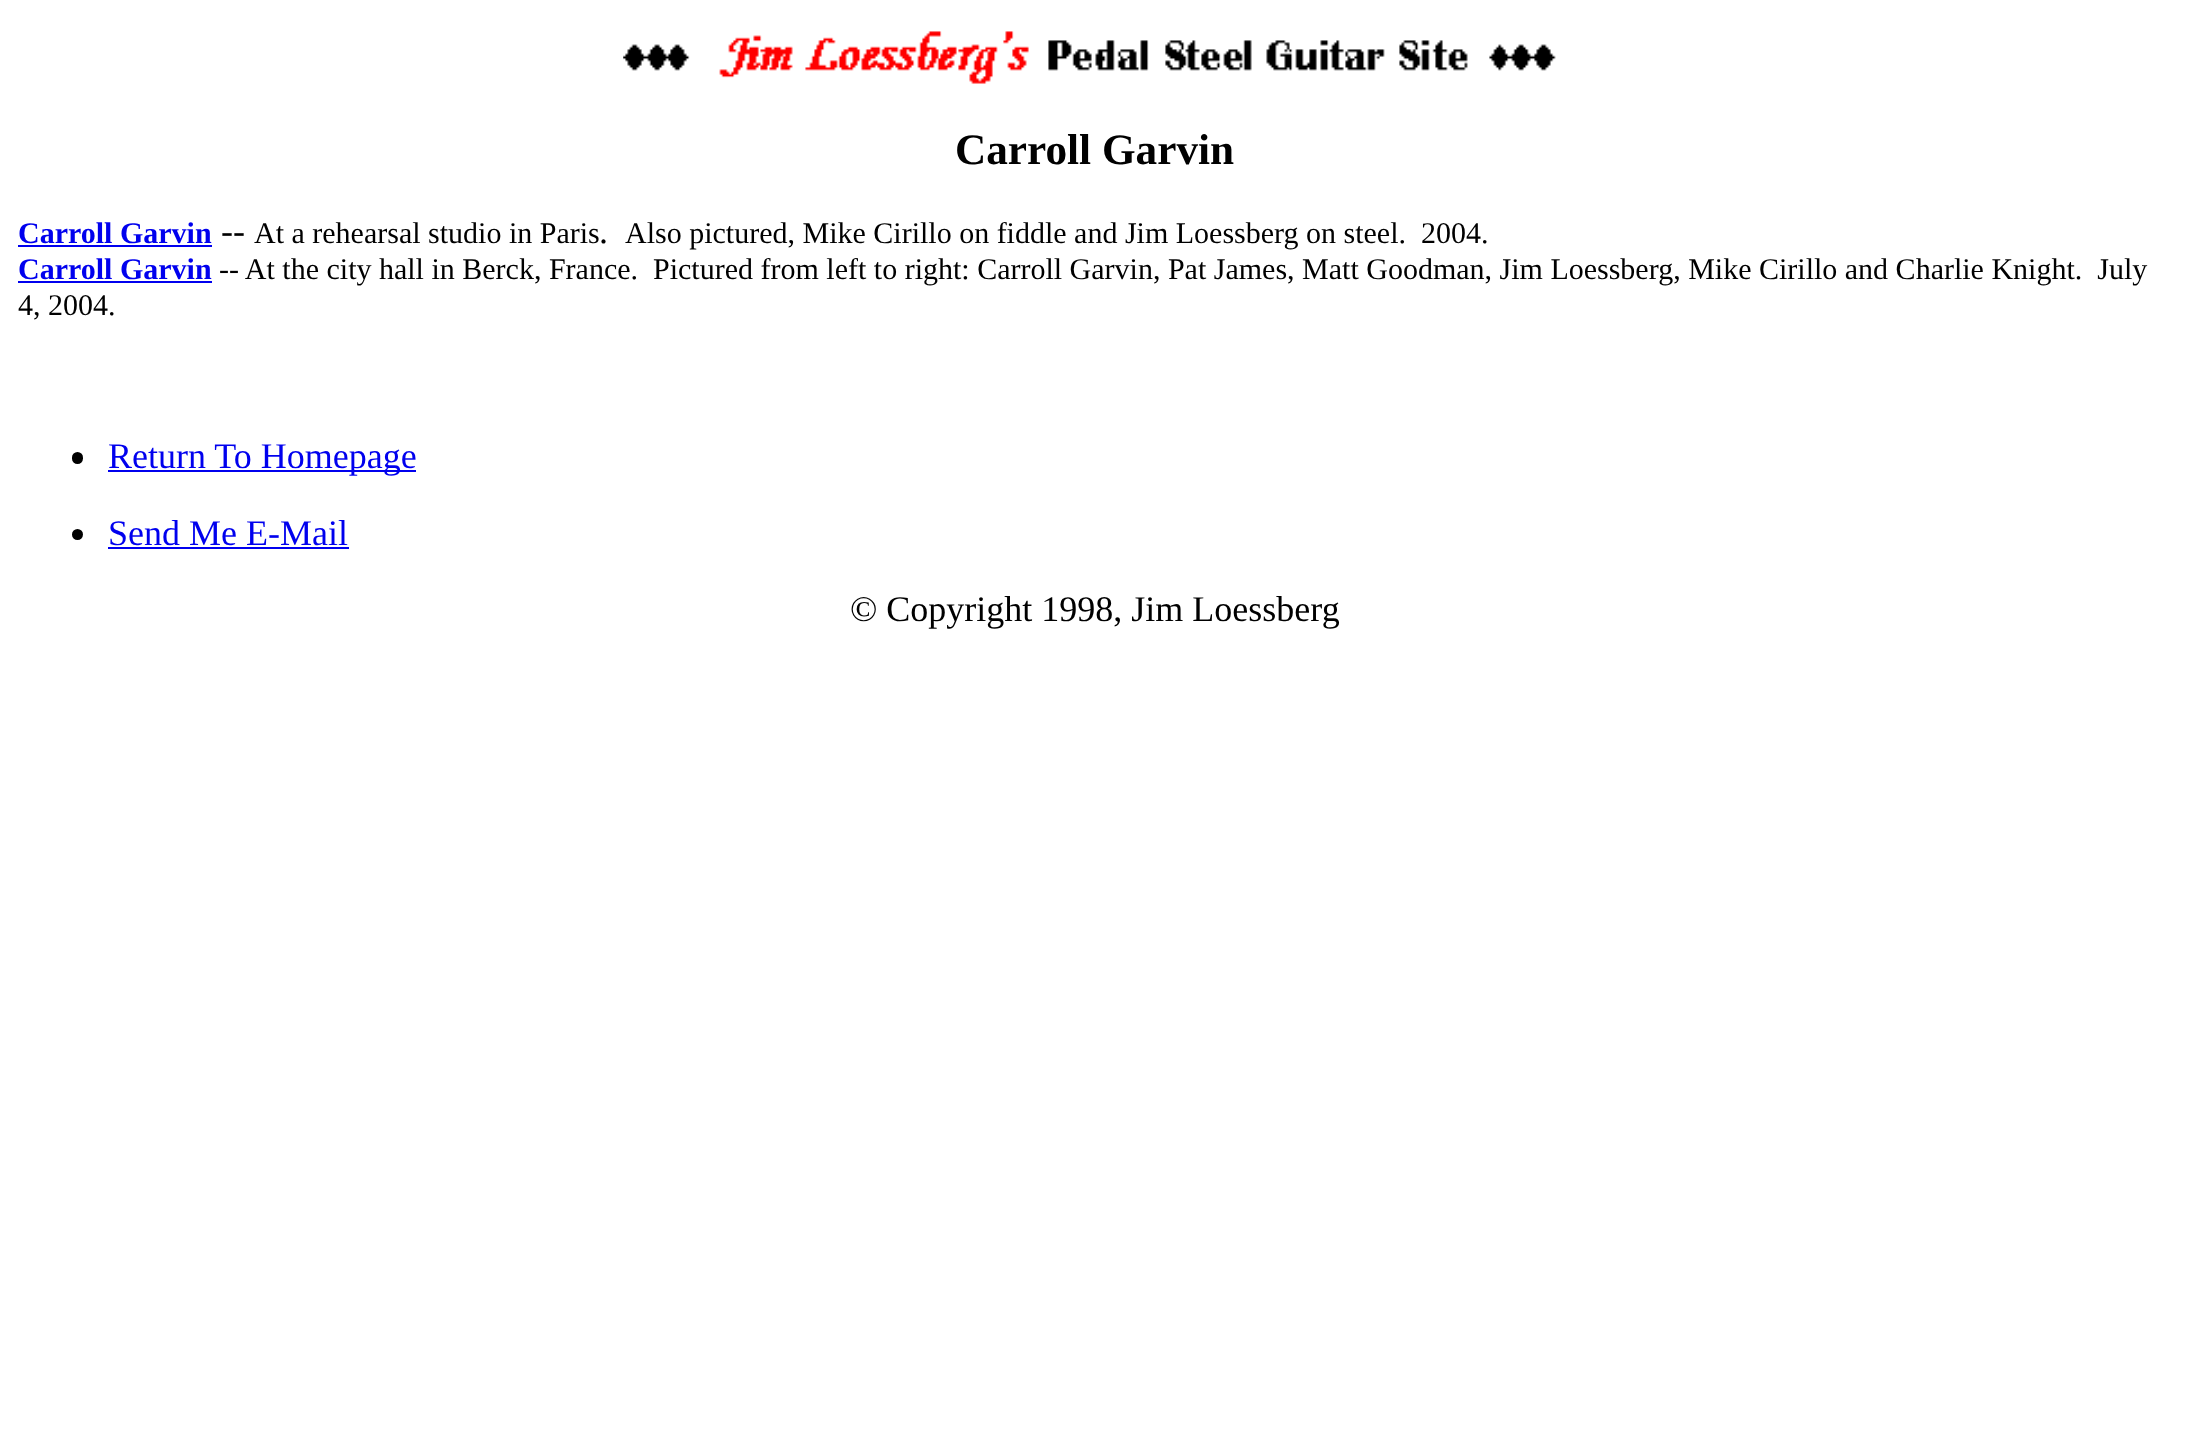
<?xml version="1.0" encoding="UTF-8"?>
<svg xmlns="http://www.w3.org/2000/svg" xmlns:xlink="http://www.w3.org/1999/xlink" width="2189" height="1440">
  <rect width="100%" height="100%" fill="#ffffff" />
  <image x="623" y="31" width="933" height="53" xlink:href="image1.png" />
  <rect x="18" y="245" width="194" height="2" fill="#0000ee" />
  <rect x="18" y="281" width="194" height="2" fill="#0000ee" />
  <rect x="72" y="452" width="11" height="12" rx="5.5" fill="#000000" />
  <rect x="108" y="470" width="308" height="2" fill="#0000ee" />
  <circle cx="77.5" cy="534.5" r="5.5" fill="#000000" />
  <rect x="108" y="547" width="241" height="2" fill="#0000ee" />
  <text x="955" y="164" style="font-family: Liberation Serif; font-size: 43.25px; font-weight: bold; fill: #000000">Carroll Garvin</text>
  <text x="18" y="243" style="font-family: Liberation Serif; font-size: 30px; font-weight: bold; fill: #0000ee">Carroll Garvin</text>
  <text x="221" y="243" style="font-family: Liberation Serif; font-size: 36px; fill: #000000">--</text>
  <text x="254" y="243" style="font-family: Liberation Serif; font-size: 30px; fill: #000000">At a rehearsal studio in Paris</text>
  <text x="625" y="243" style="font-family: Liberation Serif; font-size: 30px; fill: #000000" xml:space="preserve">Also pictured, Mike Cirillo on fiddle and Jim Loessberg on steel.  2004.</text>
  <text x="599" y="243" style="font-family: Liberation Serif; font-size: 36px; fill: #000000">.</text>
  <text x="18" y="279" style="font-family: Liberation Serif; font-size: 30px; font-weight: bold; fill: #0000ee">Carroll Garvin</text>
  <text x="219" y="279" style="font-family: Liberation Serif; font-size: 30px; fill: #000000" xml:space="preserve">-- At the city hall in Berck, France.  Pictured from left to right: Carroll Garvin, Pat James, Matt Goodman, Jim Loessberg, Mike Cirillo and Charlie Knight.  July</text>
  <text x="18" y="315" style="font-family: Liberation Serif; font-size: 30px; fill: #000000">4, 2004.</text>
  <text x="108" y="468" style="font-family: Liberation Serif; font-size: 36px; fill: #0000ee">Return To Homepage</text>
  <text x="108" y="545" style="font-family: Liberation Serif; font-size: 36px; fill: #0000ee">Send Me E-Mail</text>
  <text x="850" y="621" style="font-family: Liberation Serif; font-size: 36px; fill: #000000">© Copyright 1998, Jim Loessberg</text>
</svg>
